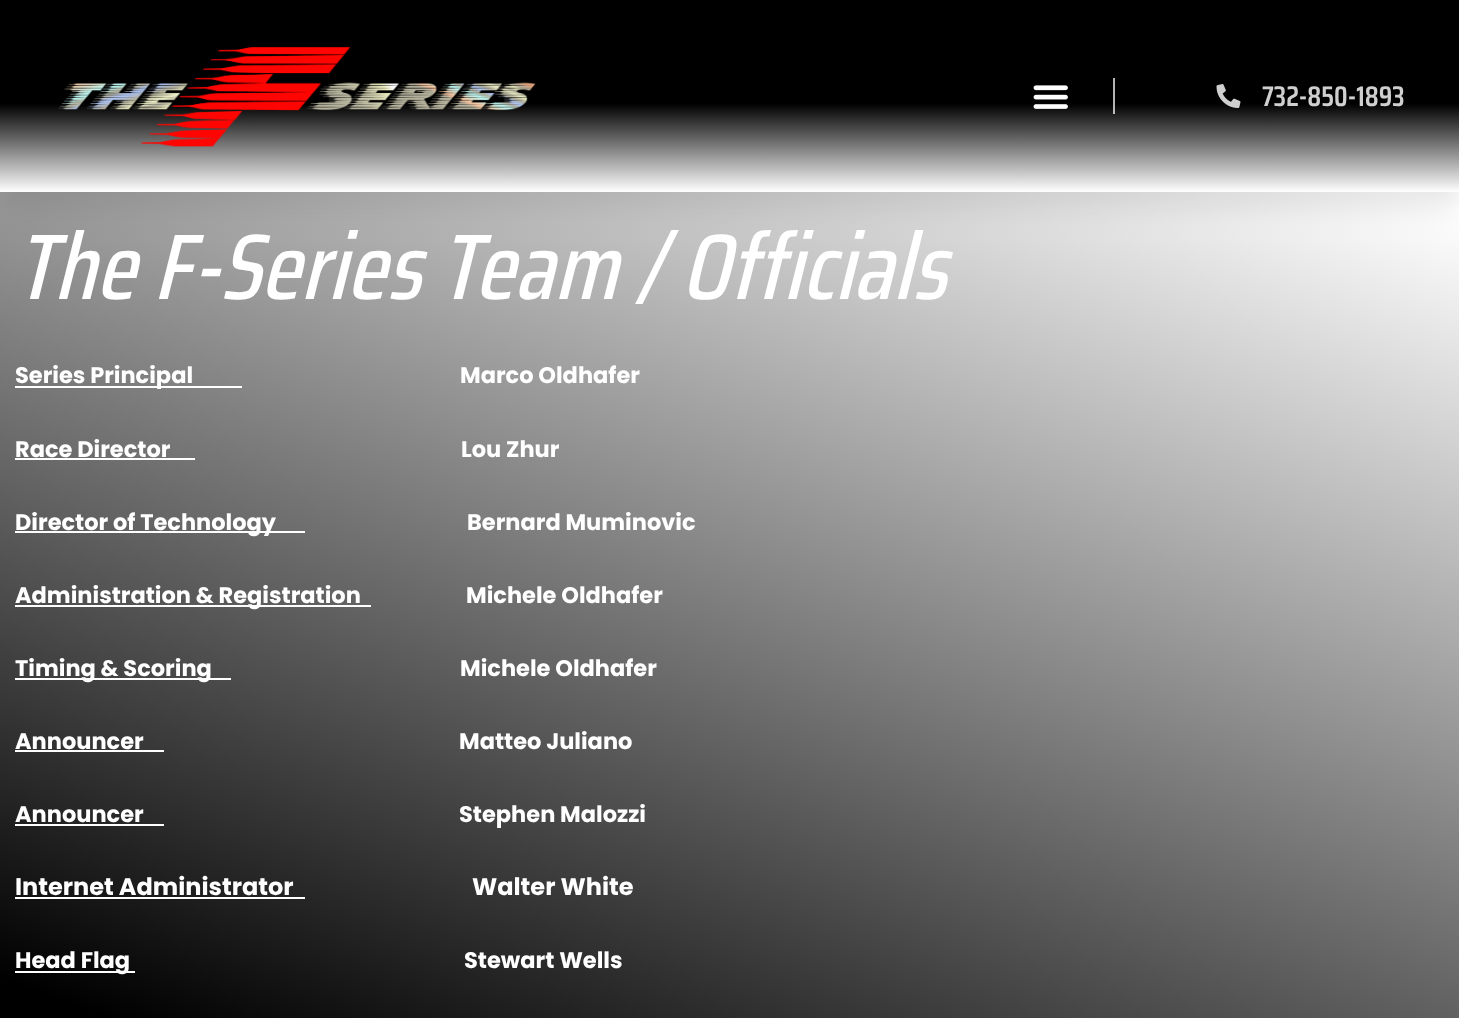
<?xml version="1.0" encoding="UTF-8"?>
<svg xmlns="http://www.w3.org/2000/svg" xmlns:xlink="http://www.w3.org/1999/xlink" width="1459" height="1018">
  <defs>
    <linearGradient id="g1" gradientUnits="userSpaceOnUse" x1="399" y1="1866" x2="1061" y2="47"><stop offset="0.36" stop-color="#000000" /><stop offset="0.99" stop-color="#ffffff" /></linearGradient>
    <linearGradient id="g2" gradientUnits="userSpaceOnUse" x1="730" y1="0" x2="730" y2="192"><stop offset="0.54" stop-color="#000000" /><stop offset="1" stop-color="#ffffff" /></linearGradient>
    <linearGradient id="g3" gradientUnits="userSpaceOnUse" x1="730" y1="0" x2="730" y2="192"><stop offset="0.54" stop-color="#b3b3b3" /><stop offset="1" stop-color="#ffffff" /></linearGradient>
  </defs>
  <rect width="100%" height="100%" fill="#ffffff" />
  <rect y="192" width="1459" height="826" fill="url(#g1)" />
  <rect y="15" width="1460" height="192" fill="#000000" fill-opacity="0.1" filter="blur(15px)" />
  <rect width="1459" height="192" fill="url(#g2)" />
  <rect x="1113" y="78" width="2" height="36" fill="url(#g3)" />
  <image x="58" y="46" width="478" height="101" xlink:href="image1.png" />
  <image x="1033" y="85" width="35" height="24" xlink:href="image2.png" />
  <image x="1216" y="84" width="25" height="24" xlink:href="image3.png" />
  <rect x="15" y="386" width="227" height="2" fill="#ffffff" />
  <rect x="15" y="458" width="180" height="2" fill="#ffffff" />
  <rect x="15" y="531" width="290" height="2" fill="#ffffff" />
  <rect x="15" y="605" width="356" height="2" fill="#ffffff" />
  <rect x="15" y="678" width="216" height="2" fill="#ffffff" />
  <rect x="15" y="750" width="149" height="2" fill="#ffffff" />
  <rect x="15" y="824" width="149" height="2" fill="#ffffff" />
  <rect x="15" y="897" width="290" height="2" fill="#ffffff" />
  <rect x="15" y="971" width="120" height="2" fill="#ffffff" />
  <text x="1262" y="106" style="font-family: Saira Condensed; font-size: 28.5px; font-weight: 600; fill: #cfcfcf">732-850-1893</text>
  <text x="15" y="299" style="font-family: Saira Condensed; font-size: 93px; font-weight: 500; font-style: italic; fill: #ffffff">The F-Series Team / Officials</text>
  <text x="15" y="383" style="font-family: Poppins; font-size: 22.5px; font-weight: bold; fill: #ffffff">Series Principal</text>
  <text x="460" y="383" style="font-family: Poppins; font-size: 22.5px; font-weight: bold; fill: #ffffff">Marco Oldhafer</text>
  <text x="15" y="457" style="font-family: Poppins; font-size: 22.5px; font-weight: bold; fill: #ffffff">Race Director</text>
  <text x="461" y="457" style="font-family: Poppins; font-size: 22.5px; font-weight: bold; fill: #ffffff">Lou Zhur</text>
  <text x="15" y="530" style="font-family: Poppins; font-size: 22.5px; font-weight: bold; fill: #ffffff">Director of Technology</text>
  <text x="467" y="530" style="font-family: Poppins; font-size: 22.5px; font-weight: bold; fill: #ffffff">Bernard Muminovic</text>
  <text x="15" y="603" style="font-family: Poppins; font-size: 22.5px; font-weight: bold; fill: #ffffff">Administration &amp; Registration</text>
  <text x="466" y="603" style="font-family: Poppins; font-size: 22.5px; font-weight: bold; fill: #ffffff">Michele Oldhafer</text>
  <text x="15" y="676" style="font-family: Poppins; font-size: 22.5px; font-weight: bold; fill: #ffffff">Timing &amp; Scoring</text>
  <text x="460" y="676" style="font-family: Poppins; font-size: 22.5px; font-weight: bold; fill: #ffffff">Michele Oldhafer</text>
  <text x="15" y="749" style="font-family: Poppins; font-size: 22.5px; font-weight: bold; fill: #ffffff">Announcer</text>
  <text x="459" y="749" style="font-family: Poppins; font-size: 22.5px; font-weight: bold; fill: #ffffff">Matteo Juliano</text>
  <text x="15" y="822" style="font-family: Poppins; font-size: 22.5px; font-weight: bold; fill: #ffffff">Announcer</text>
  <text x="459" y="822" style="font-family: Poppins; font-size: 22.5px; font-weight: bold; fill: #ffffff">Stephen Malozzi</text>
  <text x="15" y="895" style="font-family: Poppins; font-size: 24px; font-weight: bold; fill: #ffffff">Internet Administrator</text>
  <text x="472" y="895" style="font-family: Poppins; font-size: 24px; font-weight: bold; fill: #ffffff">Walter White</text>
  <text x="15" y="968" style="font-family: Poppins; font-size: 22.5px; font-weight: bold; fill: #ffffff">Head Flag</text>
  <text x="464" y="968" style="font-family: Poppins; font-size: 22.5px; font-weight: bold; fill: #ffffff">Stewart Wells</text>
</svg>
